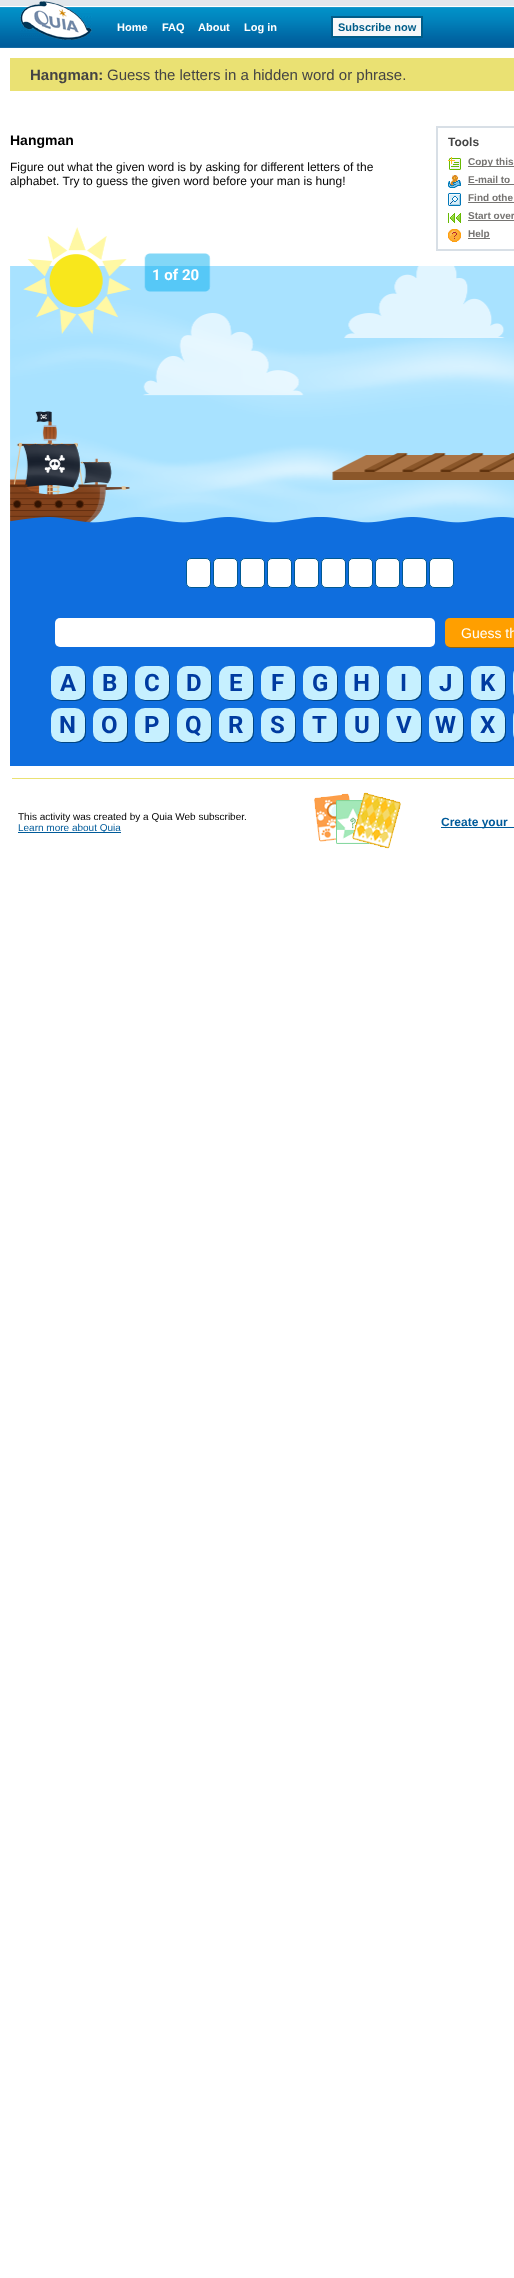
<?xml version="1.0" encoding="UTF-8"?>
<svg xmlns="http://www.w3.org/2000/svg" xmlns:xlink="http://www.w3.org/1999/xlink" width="514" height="2278">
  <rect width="100%" height="100%" fill="#ffffff" />
  <image x="0" y="0" width="514" height="48" xlink:href="image1.png" />
  <image x="20" y="1" width="72" height="39" xlink:href="image2.png" />
  <rect x="332" y="17" width="90" height="20" fill="#f6f8f9" stroke="#005d89" stroke-width="2" />
  <rect x="10" y="58" width="504" height="33" fill="#eae173" />
  <rect x="437" y="127" width="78" height="123" fill="none" stroke="#d8dfe6" stroke-width="2" />
  <image x="448" y="157" width="13" height="13" xlink:href="image3.png" />
  <rect x="468" y="166" width="46" height="1" fill="#767472" />
  <image x="448" y="175" width="13" height="13" xlink:href="image4.png" />
  <rect x="468" y="184" width="46" height="1" fill="#767472" />
  <image x="448" y="193" width="13" height="13" xlink:href="image5.png" />
  <rect x="468" y="202" width="46" height="1" fill="#767472" />
  <image x="448" y="213" width="13" height="10" xlink:href="image6.png" />
  <rect x="468" y="220" width="46" height="1" fill="#767472" />
  <image x="448" y="229" width="13" height="13" xlink:href="image7.png" />
  <rect x="468" y="238" width="22" height="1" fill="#767472" />
  <rect x="10" y="521" width="504" height="245" fill="#0f6ede" />
  <rect x="186.5" y="558.5" width="24" height="29" rx="4.5" fill="#ffffff" stroke="#005992" />
  <rect x="213.5" y="558.5" width="24" height="29" rx="4.5" fill="#ffffff" stroke="#005992" />
  <rect x="240.5" y="558.5" width="24" height="29" rx="4.5" fill="#ffffff" stroke="#005992" />
  <rect x="267.5" y="558.5" width="24" height="29" rx="4.5" fill="#ffffff" stroke="#005992" />
  <rect x="294.5" y="558.5" width="24" height="29" rx="4.5" fill="#ffffff" stroke="#005992" />
  <rect x="321.5" y="558.5" width="24" height="29" rx="4.5" fill="#ffffff" stroke="#005992" />
  <rect x="348.5" y="558.5" width="24" height="29" rx="4.5" fill="#ffffff" stroke="#005992" />
  <rect x="375.5" y="558.5" width="24" height="29" rx="4.5" fill="#ffffff" stroke="#005992" />
  <rect x="402.5" y="558.5" width="24" height="29" rx="4.5" fill="#ffffff" stroke="#005992" />
  <rect x="429.5" y="558.5" width="24" height="29" rx="4.5" fill="#ffffff" stroke="#005992" />
  <rect x="55" y="618" width="380" height="29" rx="5" fill="#ffffff" />
  <rect x="446" y="619" width="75" height="29" rx="5" fill="#8a6415" filter="blur(0.5px)" />
  <rect x="445" y="618" width="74" height="29" rx="5" fill="#ff9f00" />
  <rect x="52" y="667" width="34" height="34" rx="10" fill="#004583" filter="blur(0.5px)" />
  <rect x="51" y="666" width="34" height="34" rx="10" fill="#c6f0ff" />
  <rect x="94" y="667" width="34" height="34" rx="10" fill="#004583" filter="blur(0.5px)" />
  <rect x="93" y="666" width="34" height="34" rx="10" fill="#c6f0ff" />
  <rect x="136" y="667" width="34" height="34" rx="10" fill="#004583" filter="blur(0.5px)" />
  <rect x="135" y="666" width="34" height="34" rx="10" fill="#c6f0ff" />
  <rect x="178" y="667" width="34" height="34" rx="10" fill="#004583" filter="blur(0.5px)" />
  <rect x="177" y="666" width="34" height="34" rx="10" fill="#c6f0ff" />
  <rect x="220" y="667" width="34" height="34" rx="10" fill="#004583" filter="blur(0.5px)" />
  <rect x="219" y="666" width="34" height="34" rx="10" fill="#c6f0ff" />
  <rect x="262" y="667" width="34" height="34" rx="10" fill="#004583" filter="blur(0.5px)" />
  <rect x="261" y="666" width="34" height="34" rx="10" fill="#c6f0ff" />
  <rect x="304" y="667" width="34" height="34" rx="10" fill="#004583" filter="blur(0.5px)" />
  <rect x="303" y="666" width="34" height="34" rx="10" fill="#c6f0ff" />
  <rect x="346" y="667" width="34" height="34" rx="10" fill="#004583" filter="blur(0.5px)" />
  <rect x="345" y="666" width="34" height="34" rx="10" fill="#c6f0ff" />
  <rect x="388" y="667" width="34" height="34" rx="10" fill="#004583" filter="blur(0.5px)" />
  <rect x="387" y="666" width="34" height="34" rx="10" fill="#c6f0ff" />
  <rect x="430" y="667" width="34" height="34" rx="10" fill="#004583" filter="blur(0.5px)" />
  <rect x="429" y="666" width="34" height="34" rx="10" fill="#c6f0ff" />
  <rect x="472" y="667" width="34" height="34" rx="10" fill="#004583" filter="blur(0.5px)" />
  <rect x="471" y="666" width="34" height="34" rx="10" fill="#c6f0ff" />
  <rect x="513" y="666" width="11" height="34" rx="10" fill="#c6f0ff" />
  <rect x="52" y="709" width="34" height="34" rx="10" fill="#004583" filter="blur(0.5px)" />
  <rect x="51" y="708" width="34" height="34" rx="10" fill="#c6f0ff" />
  <rect x="94" y="709" width="34" height="34" rx="10" fill="#004583" filter="blur(0.5px)" />
  <rect x="93" y="708" width="34" height="34" rx="10" fill="#c6f0ff" />
  <rect x="136" y="709" width="34" height="34" rx="10" fill="#004583" filter="blur(0.5px)" />
  <rect x="135" y="708" width="34" height="34" rx="10" fill="#c6f0ff" />
  <rect x="178" y="709" width="34" height="34" rx="10" fill="#004583" filter="blur(0.5px)" />
  <rect x="177" y="708" width="34" height="34" rx="10" fill="#c6f0ff" />
  <rect x="220" y="709" width="34" height="34" rx="10" fill="#004583" filter="blur(0.5px)" />
  <rect x="219" y="708" width="34" height="34" rx="10" fill="#c6f0ff" />
  <rect x="262" y="709" width="34" height="34" rx="10" fill="#004583" filter="blur(0.5px)" />
  <rect x="261" y="708" width="34" height="34" rx="10" fill="#c6f0ff" />
  <rect x="304" y="709" width="34" height="34" rx="10" fill="#004583" filter="blur(0.5px)" />
  <rect x="303" y="708" width="34" height="34" rx="10" fill="#c6f0ff" />
  <rect x="346" y="709" width="34" height="34" rx="10" fill="#004583" filter="blur(0.5px)" />
  <rect x="345" y="708" width="34" height="34" rx="10" fill="#c6f0ff" />
  <rect x="388" y="709" width="34" height="34" rx="10" fill="#004583" filter="blur(0.5px)" />
  <rect x="387" y="708" width="34" height="34" rx="10" fill="#c6f0ff" />
  <rect x="430" y="709" width="34" height="34" rx="10" fill="#004583" filter="blur(0.5px)" />
  <rect x="429" y="708" width="34" height="34" rx="10" fill="#c6f0ff" />
  <rect x="472" y="709" width="34" height="34" rx="10" fill="#004583" filter="blur(0.5px)" />
  <rect x="471" y="708" width="34" height="34" rx="10" fill="#c6f0ff" />
  <rect x="513" y="708" width="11" height="34" rx="10" fill="#c6f0ff" />
  <rect x="12" y="778" width="502" height="1" fill="#eae173" />
  <rect x="18" y="832" width="103" height="1" fill="#005b9a" />
  <image x="314" y="792" width="87" height="57" xlink:href="image9.png" />
  <rect x="441" y="827" width="73" height="1" fill="#005b9a" />
  <text x="117" y="31" style="font-family: Liberation Sans; font-size: 11px; font-weight: bold; fill: #ffffff">Home</text>
  <text x="162" y="31" style="font-family: Liberation Sans; font-size: 11px; font-weight: bold; fill: #ffffff">FAQ</text>
  <text x="198" y="31" style="font-family: Liberation Sans; font-size: 11px; font-weight: bold; fill: #ffffff">About</text>
  <text x="244" y="31" style="font-family: Liberation Sans; font-size: 11px; font-weight: bold; fill: #ffffff">Log in</text>
  <text x="338" y="31" style="font-family: Liberation Sans; font-size: 11px; font-weight: bold; fill: #005d89">Subscribe now</text>
  <text x="30" y="80" style="font-family: Liberation Sans; font-size: 15px; font-weight: bold; fill: #444444">Hangman:</text>
  <text x="107" y="80" style="font-family: Liberation Sans; font-size: 15px; fill: #444444">Guess the letters in a hidden word or phrase.</text>
  <text x="10" y="145" style="font-family: Liberation Sans; font-size: 14px; font-weight: bold; fill: #000000">Hangman</text>
  <text x="10" y="171" style="font-family: Liberation Sans; font-size: 12px; fill: #000000">Figure out what the given word is by asking for different letters of the</text>
  <text x="10" y="185" style="font-family: Liberation Sans; font-size: 12px; fill: #000000">alphabet. Try to guess the given word before your man is hung!</text>
  <text x="448" y="146" style="font-family: Liberation Sans; font-size: 12px; font-weight: bold; fill: #444444">Tools</text>
  <text x="468" y="165" style="font-family: Liberation Sans; font-size: 10px; font-weight: bold; fill: #767472">Copy this</text>
  <text x="468" y="183" style="font-family: Liberation Sans; font-size: 10px; font-weight: bold; fill: #767472">E-mail to</text>
  <text x="468" y="201" style="font-family: Liberation Sans; font-size: 10px; font-weight: bold; fill: #767472">Find othe</text>
  <text x="468" y="219" style="font-family: Liberation Sans; font-size: 10px; font-weight: bold; fill: #767472">Start over</text>
  <text x="468" y="237" style="font-family: Liberation Sans; font-size: 10px; font-weight: bold; fill: #767472">Help</text>
  <image x="10" y="227" width="504" height="296" xlink:href="image8.png" />
  <text x="152" y="280" style="font-family: Roboto; font-size: 15px; font-weight: bold; fill: #ffffff">1 of 20</text>
  <text x="461" y="638" style="font-family: Liberation Sans; font-size: 14px; fill: #ffffff">Guess th</text>
  <text x="60" y="691" style="font-family: Roboto; font-size: 24px; font-weight: bold; fill: #003ba0">A</text>
  <text x="102" y="691" style="font-family: Roboto; font-size: 24px; font-weight: bold; fill: #003ba0">B</text>
  <text x="144" y="691" style="font-family: Roboto; font-size: 24px; font-weight: bold; fill: #003ba0">C</text>
  <text x="186" y="691" style="font-family: Roboto; font-size: 24px; font-weight: bold; fill: #003ba0">D</text>
  <text x="229" y="691" style="font-family: Roboto; font-size: 24px; font-weight: bold; fill: #003ba0">E</text>
  <text x="271" y="691" style="font-family: Roboto; font-size: 24px; font-weight: bold; fill: #003ba0">F</text>
  <text x="312" y="691" style="font-family: Roboto; font-size: 24px; font-weight: bold; fill: #003ba0">G</text>
  <text x="353" y="691" style="font-family: Roboto; font-size: 24px; font-weight: bold; fill: #003ba0">H</text>
  <text x="400" y="691" style="font-family: Roboto; font-size: 24px; font-weight: bold; fill: #003ba0">I</text>
  <text x="439" y="691" style="font-family: Roboto; font-size: 24px; font-weight: bold; fill: #003ba0">J</text>
  <text x="480" y="691" style="font-family: Roboto; font-size: 24px; font-weight: bold; fill: #003ba0">K</text>
  <text x="59" y="733" style="font-family: Roboto; font-size: 24px; font-weight: bold; fill: #003ba0">N</text>
  <text x="101" y="733" style="font-family: Roboto; font-size: 24px; font-weight: bold; fill: #003ba0">O</text>
  <text x="144" y="733" style="font-family: Roboto; font-size: 24px; font-weight: bold; fill: #003ba0">P</text>
  <text x="185" y="733" style="font-family: Roboto; font-size: 24px; font-weight: bold; fill: #003ba0">Q</text>
  <text x="228" y="733" style="font-family: Roboto; font-size: 24px; font-weight: bold; fill: #003ba0">R</text>
  <text x="270" y="733" style="font-family: Roboto; font-size: 24px; font-weight: bold; fill: #003ba0">S</text>
  <text x="312" y="733" style="font-family: Roboto; font-size: 24px; font-weight: bold; fill: #003ba0">T</text>
  <text x="354" y="733" style="font-family: Roboto; font-size: 24px; font-weight: bold; fill: #003ba0">U</text>
  <text x="396" y="733" style="font-family: Roboto; font-size: 24px; font-weight: bold; fill: #003ba0">V</text>
  <text x="435" y="733" style="font-family: Roboto; font-size: 24px; font-weight: bold; fill: #003ba0">W</text>
  <text x="480" y="733" style="font-family: Roboto; font-size: 24px; font-weight: bold; fill: #003ba0">X</text>
  <text x="18" y="820" style="font-family: Liberation Sans; font-size: 10px; fill: #000000">This activity was created by a Quia Web subscriber.</text>
  <text x="18" y="831" style="font-family: Liberation Sans; font-size: 10px; fill: #005b9a">Learn more about Quia</text>
  <text x="441" y="826" style="font-family: Liberation Sans; font-size: 12px; font-weight: bold; fill: #005b9a">Create your</text>
</svg>
